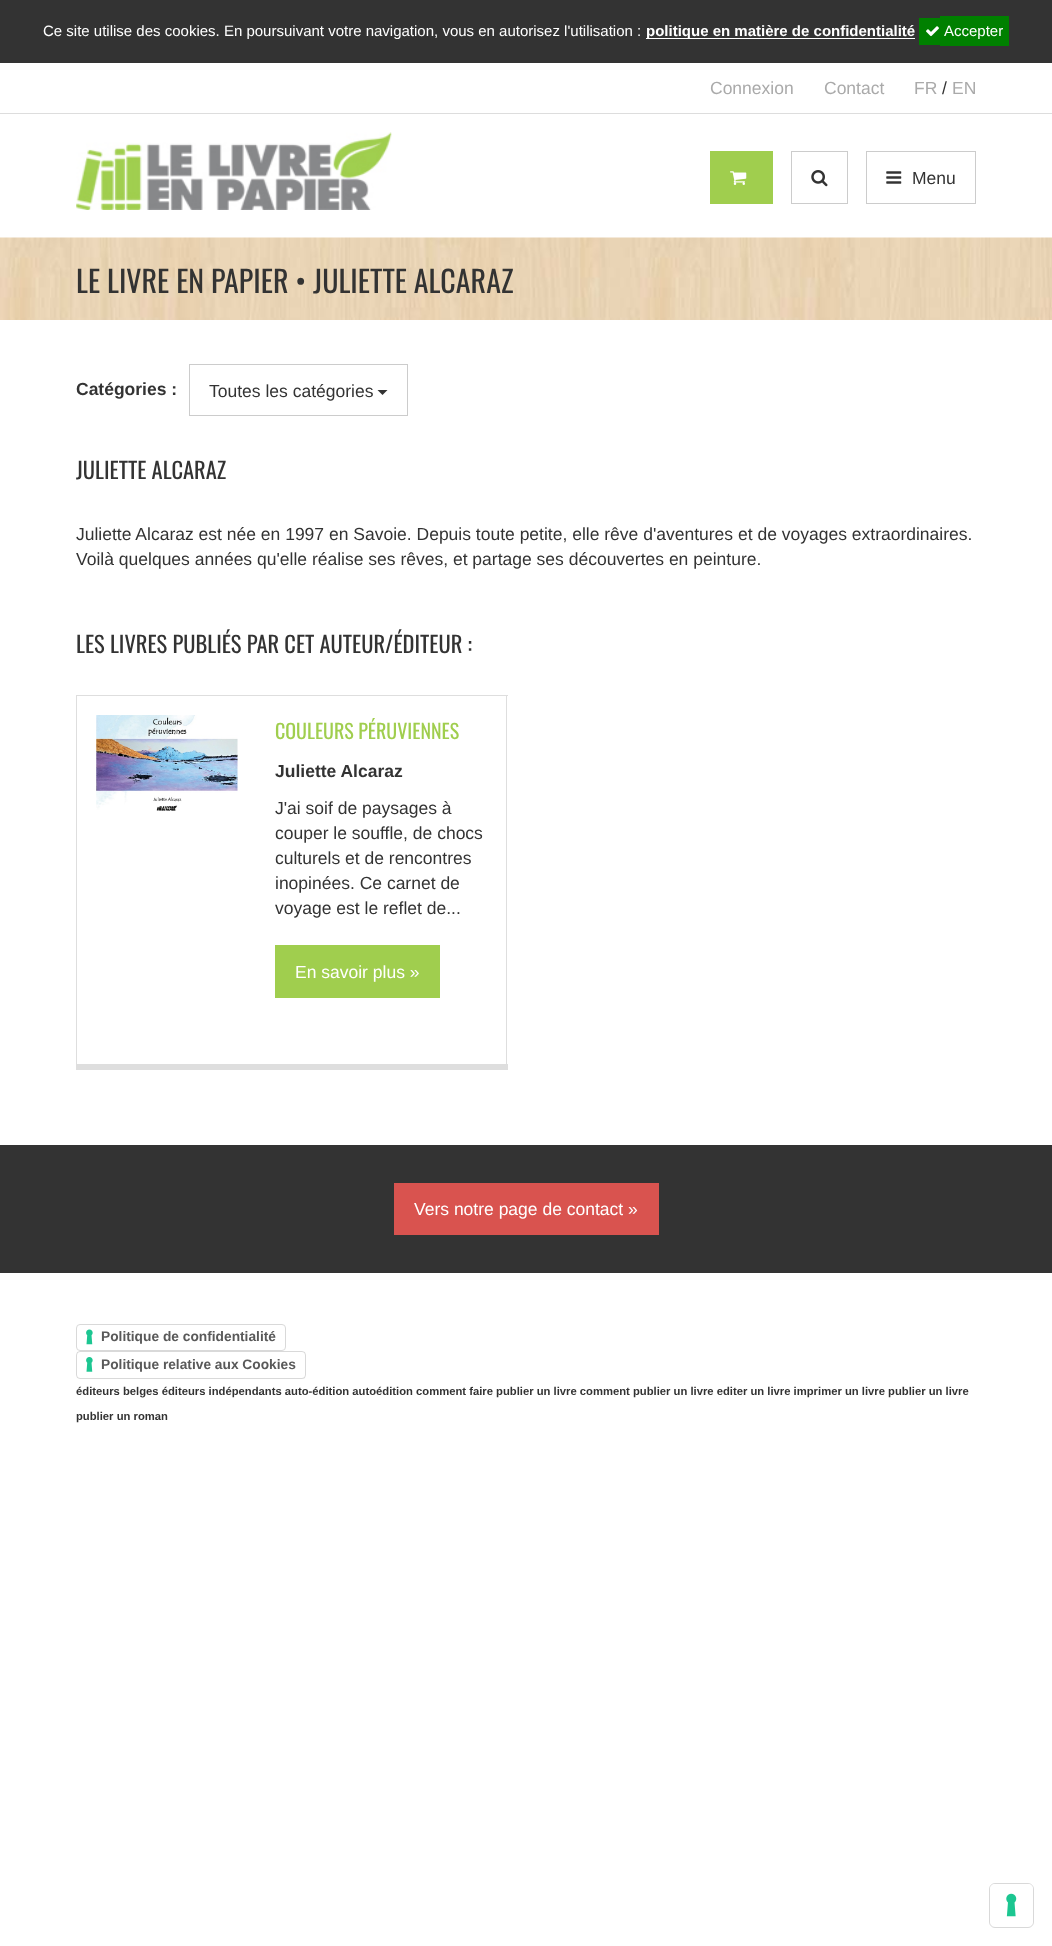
<?xml version="1.0" encoding="UTF-8"?>
<svg xmlns="http://www.w3.org/2000/svg" xmlns:xlink="http://www.w3.org/1999/xlink" width="1052" height="1946">
  <rect width="100%" height="100%" fill="#ffffff" />
  <rect width="1052" height="63" fill="#333333" />
  <rect x="646" y="38" width="269" height="1" fill="#ffffff" />
  <rect x="919" y="18" width="21" height="27" fill="#008000" />
  <rect x="940" y="16" width="69" height="30" fill="#008000" />
  <image x="926" y="26" width="13" height="11" xlink:href="image1.png" />
  <rect y="113" width="1052" height="1" fill="#dddddd" />
  <image x="76" y="132" width="316" height="78" xlink:href="image2.png" />
  <rect x="710" y="151" width="63" height="53" fill="#a0ce4e" />
  <image x="730" y="171" width="17" height="14" xlink:href="image3.png" />
  <rect x="791.5" y="151.5" width="56" height="52" fill="none" stroke="#cccccc" />
  <image x="811" y="170" width="17" height="17" xlink:href="image4.png" />
  <rect x="866.5" y="151.5" width="109" height="52" fill="none" stroke="#cccccc" />
  <image x="886" y="171" width="16" height="13" xlink:href="image5.png" />
  <image x="0" y="237" width="1052" height="83" xlink:href="image6.png" />
  <rect x="189.5" y="364.5" width="218" height="51" fill="none" stroke="#cccccc" />
  <path d="M 377.5 390 h 10 l -5 5 z" fill="#333333" />
  <rect x="76" y="695" width="432" height="1" fill="#dedede" />
  <rect x="506" y="695" width="1" height="375" fill="#dedede" />
  <rect x="76" y="1064" width="432" height="6" fill="#dedede" />
  <rect x="76" y="695" width="1" height="375" fill="#dedede" />
  <image x="96" y="715" width="142" height="96" xlink:href="image7.png" />
  <rect x="275" y="945" width="165" height="53" fill="#a0ce4e" />
  <rect y="1145" width="1052" height="128" fill="#333333" />
  <rect x="394" y="1183" width="265" height="52" fill="#d9534f" />
  <image x="86" y="1329" width="7" height="16" xlink:href="image8.png" />
  <rect x="76.5" y="1324.5" width="209" height="26" rx="3.5" fill="none" stroke="#d9d9d9" />
  <rect x="78" y="1354" width="227" height="25" rx="2.5" fill="#000000" fill-opacity="0.15" filter="blur(0.5px)" />
  <rect x="76" y="1351" width="230" height="28" rx="4" fill="#ffffff" />
  <image x="86" y="1357" width="7" height="15" xlink:href="image9.png" />
  <rect x="76.5" y="1351.5" width="229" height="27" rx="3.5" fill="none" stroke="#000000" stroke-opacity="0.15" />
  <rect x="989.5" y="1883.5" width="44" height="44" rx="5.5" fill="none" stroke="#d9d9d9" />
  <rect x="990" y="1884" width="43" height="42" rx="5" fill="#ffffff" />
  <image x="1006" y="1893" width="11" height="24" xlink:href="image10.png" />
  <text x="43" y="36" style="font-family: Liberation Sans; font-size: 15px; fill: #ffffff">Ce site utilise des cookies. En poursuivant votre navigation, vous en autorisez l'utilisation :</text>
  <text x="646" y="36" style="font-family: Liberation Sans; font-size: 15px; font-weight: bold; fill: #ffffff">politique en matière de confidentialité</text>
  <text x="944" y="36" style="font-family: Liberation Sans; font-size: 15px; fill: #ffffff">Accepter</text>
  <text x="710" y="94" style="font-family: Liberation Sans; font-size: 17.5px; fill: #aaaaaa">Connexion</text>
  <text x="824" y="94" style="font-family: Liberation Sans; font-size: 17.5px; fill: #aaaaaa">Contact</text>
  <text x="914" y="94" style="font-family: Liberation Sans; font-size: 17.5px; fill: #aaaaaa">FR</text>
  <text x="942" y="94" style="font-family: Liberation Sans; font-size: 17.5px; fill: #333333">/</text>
  <text x="952" y="94" style="font-family: Liberation Sans; font-size: 17.5px; fill: #aaaaaa">EN</text>
  <text x="912" y="184" style="font-family: Liberation Sans; font-size: 17.5px; fill: #333333">Menu</text>
  <text x="76" y="293" style="font-family: Oswald; font-size: 30px; fill: #333333">LE LIVRE EN PAPIER • JULIETTE ALCARAZ</text>
  <text x="76" y="395" style="font-family: Liberation Sans; font-size: 17.5px; font-weight: bold; fill: #333333">Catégories :</text>
  <text x="209" y="397" style="font-family: Liberation Sans; font-size: 17.5px; fill: #333333">Toutes les catégories</text>
  <text x="76" y="479" style="font-family: Oswald; font-size: 22.5px; fill: #333333">JULIETTE ALCARAZ</text>
  <text x="76" y="540" style="font-family: Liberation Sans; font-size: 17.5px; fill: #333333">Juliette Alcaraz est née en 1997 en Savoie. Depuis toute petite, elle rêve d'aventures et de voyages extraordinaires.</text>
  <text x="76" y="565" style="font-family: Liberation Sans; font-size: 17.5px; fill: #333333">Voilà quelques années qu'elle réalise ses rêves, et partage ses découvertes en peinture.</text>
  <text x="76" y="653" style="font-family: Oswald; font-size: 22.5px; fill: #333333">LES LIVRES PUBLIÉS PAR CET AUTEUR/ÉDITEUR :</text>
  <text x="275" y="739" style="font-family: Oswald; font-size: 20px; fill: #a0ce4e">COULEURS PÉRUVIENNES</text>
  <text x="275" y="777" style="font-family: Liberation Sans; font-size: 17.5px; font-weight: bold; fill: #333333">Juliette Alcaraz</text>
  <text x="275" y="814" style="font-family: Liberation Sans; font-size: 17.5px; fill: #333333">J'ai soif de paysages à</text>
  <text x="275" y="839" style="font-family: Liberation Sans; font-size: 17.5px; fill: #333333">couper le souffle, de chocs</text>
  <text x="275" y="864" style="font-family: Liberation Sans; font-size: 17.5px; fill: #333333">culturels et de rencontres</text>
  <text x="275" y="889" style="font-family: Liberation Sans; font-size: 17.5px; fill: #333333">inopinées. Ce carnet de</text>
  <text x="275" y="914" style="font-family: Liberation Sans; font-size: 17.5px; fill: #333333">voyage est le reflet de...</text>
  <text x="295" y="978" style="font-family: Liberation Sans; font-size: 17.5px; fill: #ffffff">En savoir plus »</text>
  <text x="414" y="1215" style="font-family: Liberation Sans; font-size: 17.5px; fill: #ffffff">Vers notre page de contact »</text>
  <text x="101" y="1341" style="font-family: Liberation Sans; font-size: 13.75px; font-weight: bold; fill: #595959">Politique de confidentialité</text>
  <text x="101" y="1369" style="font-family: Liberation Sans; font-size: 13.75px; font-weight: bold; fill: #595959">Politique relative aux Cookies</text>
  <text x="76" y="1395" style="font-family: Liberation Sans; font-size: 11.25px; font-weight: bold; fill: #333333">éditeurs belges éditeurs indépendants auto-édition autoédition comment faire publier un livre comment publier un livre editer un livre imprimer un livre publier un livre</text>
  <text x="76" y="1420" style="font-family: Liberation Sans; font-size: 11.25px; font-weight: bold; fill: #333333">publier un roman</text>
</svg>
